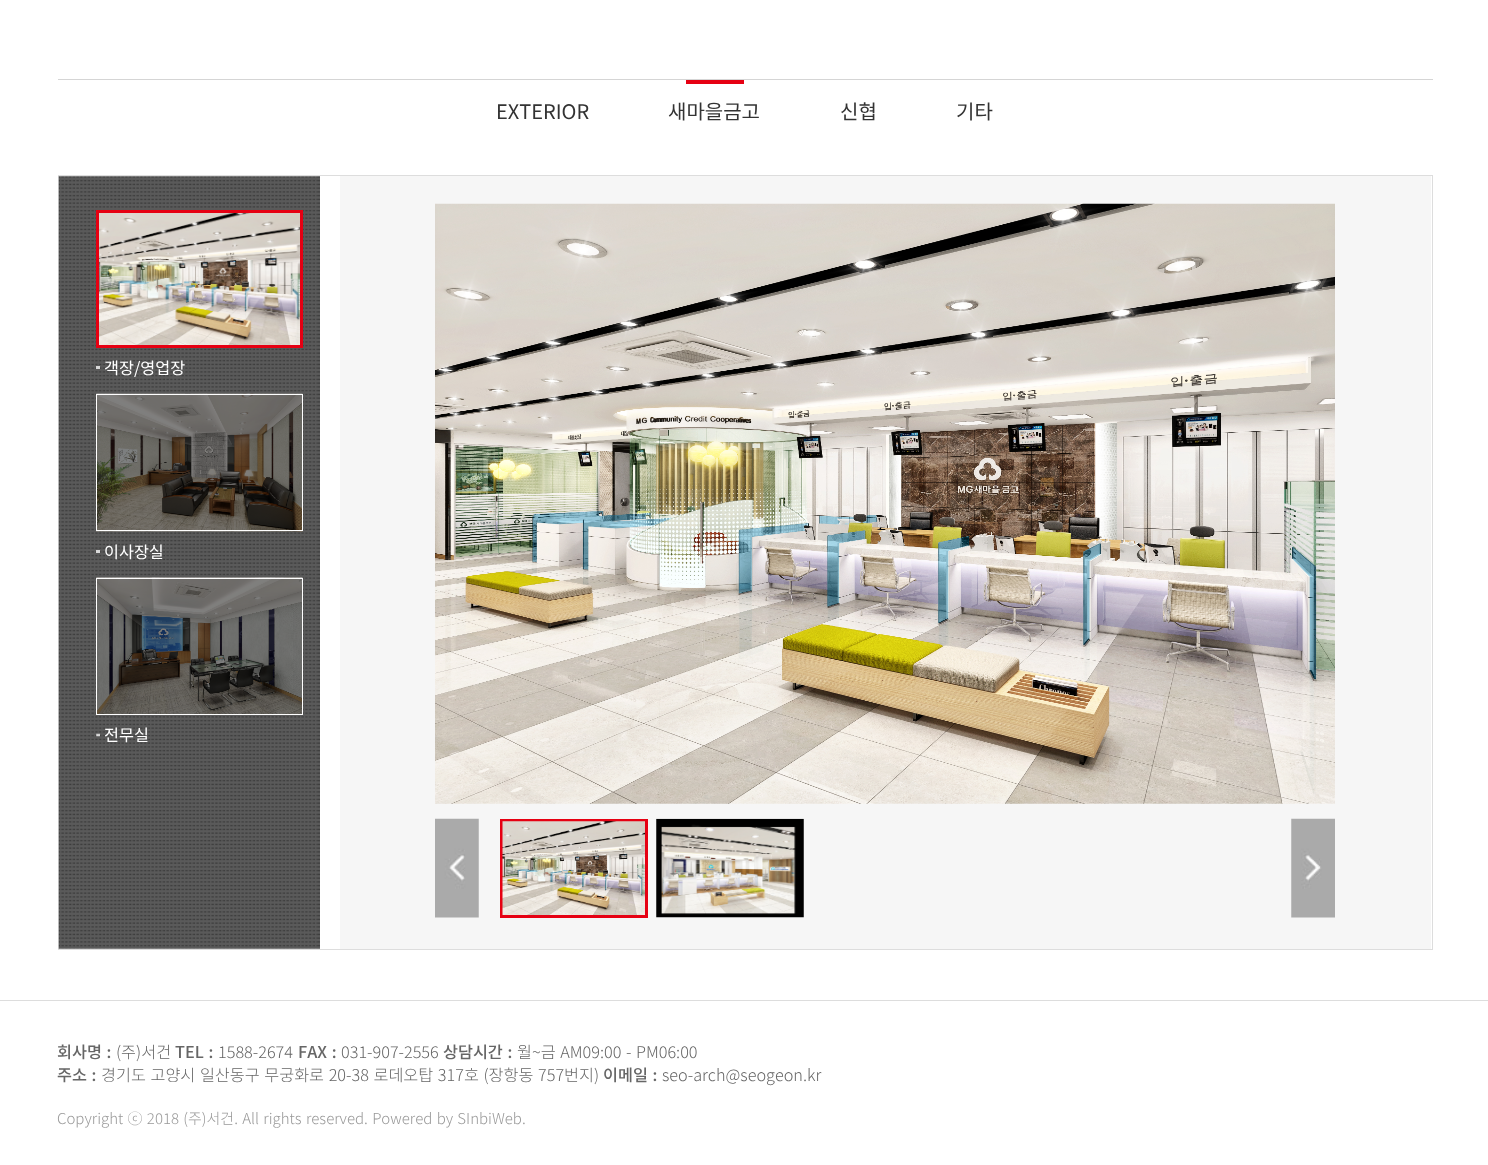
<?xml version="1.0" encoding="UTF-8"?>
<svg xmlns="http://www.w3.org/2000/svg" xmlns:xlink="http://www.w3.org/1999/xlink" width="1488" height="1165">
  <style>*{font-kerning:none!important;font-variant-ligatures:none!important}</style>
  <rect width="100%" height="100%" fill="#ffffff" />
  <rect x="58" y="79" width="1375" height="1" fill="#d5d5d5" />
  <rect x="686" y="80" width="58" height="4" fill="#e60012" />
  <rect x="58.5" y="175.5" width="1374" height="774" fill="none" stroke="#dddddd" />
  <image x="58" y="176" width="262" height="773" xlink:href="image1.png" />
  <image x="99" y="213" width="201" height="132" xlink:href="image2.png" />
  <rect x="97.5" y="211.5" width="204" height="135" fill="none" stroke="#e60012" stroke-width="3" />
  <rect x="96" y="366" width="4" height="3" fill="#d7d7d7" />
  <image x="96" y="393" width="207" height="139" xlink:href="image3.png" />
  <rect x="96.5" y="394.5" width="206" height="136" fill="#000000" fill-opacity="0.5" stroke="#ffffff" />
  <rect x="96" y="550" width="4" height="3" fill="#d9d9d9" />
  <image x="96" y="577" width="207" height="137" xlink:href="image4.png" />
  <rect x="96.5" y="578.5" width="206" height="136" fill="#000000" fill-opacity="0.5" stroke="#ffffff" />
  <image x="96" y="733" width="4" height="4" xlink:href="image5.png" />
  <rect x="340" y="176" width="1091" height="773" fill="#f6f6f6" />
  <image x="435" y="203" width="900" height="601" xlink:href="image6.png" />
  <image x="435" y="818" width="44" height="100" xlink:href="image7.png" />
  <image x="1291" y="818" width="44" height="100" xlink:href="image8.png" />
  <rect x="501.5" y="820.5" width="145" height="96" fill="none" stroke="#e60012" stroke-width="3" />
  <image x="502" y="821" width="143" height="94" xlink:href="image9.png" />
  <image x="656" y="818" width="148" height="100" xlink:href="image10.png" />
  <rect y="1000" width="1488" height="1" fill="#dddddd" />
  <text x="496" y="119" style="font-family: Noto Sans KR; font-size: 20px; fill: #333333">EXTERIOR</text>
  <text x="668" y="119" style="font-family: Noto Sans KR; font-size: 20px; fill: #333333">새마을금고</text>
  <text x="840" y="119" style="font-family: Noto Sans KR; font-size: 20px; fill: #333333">신협</text>
  <text x="956" y="119" style="font-family: Noto Sans KR; font-size: 20px; fill: #333333">기타</text>
  <text x="104" y="374" style="font-family: Noto Sans KR; font-size: 16.25px; fill: #ffffff">객장/영업장</text>
  <text x="104" y="558" style="font-family: Noto Sans KR; font-size: 16.25px; fill: #ffffff">이사장실</text>
  <text x="104" y="741" style="font-family: Noto Sans KR; font-size: 16.25px; fill: #ffffff">전무실</text>
  <text x="57" y="1058" word-spacing="1" style="font-family: Noto Sans KR; font-size: 16.25px; font-weight: 500; fill: #666666">회사명 :</text>
  <text x="116" y="1058" style="font-family: Noto Sans KR; font-size: 16.25px; font-weight: 300; fill: #666666">(주)서건</text>
  <text x="175" y="1058" word-spacing="1" style="font-family: Noto Sans KR; font-size: 16.25px; font-weight: 500; fill: #666666">TEL :</text>
  <text x="218" y="1058" style="font-family: Noto Sans KR; font-size: 16.25px; font-weight: 300; fill: #666666">1588-2674</text>
  <text x="298" y="1058" word-spacing="1" style="font-family: Noto Sans KR; font-size: 16.25px; font-weight: 500; fill: #666666">FAX :</text>
  <text x="341" y="1058" style="font-family: Noto Sans KR; font-size: 16.25px; font-weight: 300; fill: #666666">031-907-2556</text>
  <text x="443" y="1058" word-spacing="1" style="font-family: Noto Sans KR; font-size: 16.25px; font-weight: 500; fill: #666666">상담시간 :</text>
  <text x="517" y="1058" word-spacing="1" style="font-family: Noto Sans KR; font-size: 16.25px; font-weight: 300; fill: #666666">월~금 AM09:00 - PM06:00</text>
  <text x="57" y="1081" word-spacing="1" style="font-family: Noto Sans KR; font-size: 16.25px; font-weight: 500; fill: #666666">주소 :</text>
  <text x="101" y="1081" word-spacing="1" style="font-family: Noto Sans KR; font-size: 16.25px; font-weight: 300; fill: #666666">경기도 고양시 일산동구 무궁화로 20-38 로데오탑 317호 (장항동 757번지)</text>
  <text x="603" y="1081" word-spacing="1" style="font-family: Noto Sans KR; font-size: 16.25px; font-weight: 500; fill: #666666">이메일 :</text>
  <text x="662" y="1081" style="font-family: Noto Sans KR; font-size: 16.25px; font-weight: 300; fill: #666666">seo-arch@seogeon.kr</text>
  <text x="57" y="1124" word-spacing="1" style="font-family: Noto Sans KR; font-size: 15px; font-weight: 300; fill: #999999">Copyright ⓒ 2018 (주)서건. All rights reserved. Powered by SInbiWeb.</text>
</svg>
